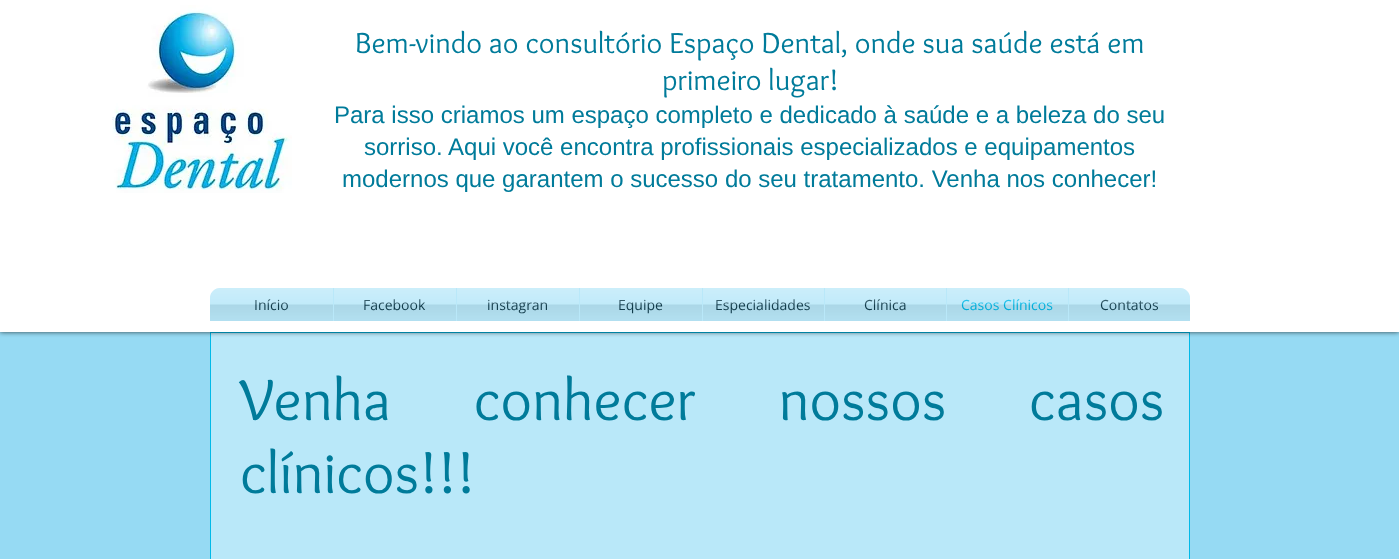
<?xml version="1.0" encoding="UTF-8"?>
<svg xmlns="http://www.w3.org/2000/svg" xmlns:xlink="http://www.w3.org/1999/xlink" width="1399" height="559">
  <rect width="100%" height="100%" fill="#96daf3" />
  <rect x="210.5" y="332.5" width="979" height="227" fill="#b9e8f9" stroke="#00b9e8" />
  <rect width="1399" height="332" fill="#000000" fill-opacity="0.7" filter="blur(2.5px)" />
  <rect width="1399" height="332" fill="#ffffff" />
  <image x="112" y="5" width="180" height="188" xlink:href="image1.png" />
  <image x="210" y="288" width="980" height="10" xlink:href="image2.png" />
  <path d="M 220 288 h 113 v 33 h -123 v -23 c 0 -5.5 4.5 -10 10 -10 z" fill="#b9e8f9" />
  <rect x="333" y="288" width="735" height="33" fill="#b9e8f9" />
  <path d="M 1068 288 h 112 c 5.5 0 10 4.5 10 10 v 23 h -122 z" fill="#b9e8f9" />
  <text x="355" y="53" style="font-family: Overlock; font-size: 30px; fill: #007b9a">Bem-vindo ao consultório Espaço Dental, onde sua saúde está em</text>
  <text x="662" y="90" style="font-family: Overlock; font-size: 30px; fill: #007b9a">primeiro lugar!</text>
  <text x="334" y="123" style="font-family: Liberation Sans; font-size: 24px; fill: #007b9a">Para isso criamos um espaço completo e dedicado à saúde e a beleza do seu</text>
  <text x="364" y="155" style="font-family: Liberation Sans; font-size: 24px; fill: #007b9a">sorriso. Aqui você encontra profissionais especializados e equipamentos</text>
  <text x="342" y="187" style="font-family: Liberation Sans; font-size: 24px; fill: #007b9a">modernos que garantem o sucesso do seu tratamento. Venha nos conhecer!</text>
  <text x="254" y="310" style="font-family: Open Sans; font-size: 14px; fill: #123f4f">Início</text>
  <image x="210" y="288" width="123" height="33" xlink:href="image3.png" />
  <text x="363" y="310" style="font-family: Open Sans; font-size: 14px; fill: #123f4f">Facebook</text>
  <image x="334" y="288" width="122" height="33" xlink:href="image4.png" />
  <text x="487" y="310" style="font-family: Open Sans; font-size: 14px; fill: #123f4f">instagran</text>
  <image x="457" y="288" width="122" height="33" xlink:href="image5.png" />
  <text x="618" y="310" style="font-family: Open Sans; font-size: 14px; fill: #123f4f">Equipe</text>
  <image x="580" y="288" width="122" height="33" xlink:href="image6.png" />
  <text x="715" y="310" style="font-family: Open Sans; font-size: 14px; fill: #123f4f">Especialidades</text>
  <image x="703" y="288" width="121" height="33" xlink:href="image7.png" />
  <text x="864" y="310" style="font-family: Open Sans; font-size: 14px; fill: #123f4f">Clínica</text>
  <image x="825" y="288" width="121" height="33" xlink:href="image8.png" />
  <text x="961" y="310" style="font-family: Open Sans; font-size: 14px; fill: #00b9e8">Casos Clínicos</text>
  <image x="947" y="288" width="121" height="33" xlink:href="image9.png" />
  <text x="1100" y="310" style="font-family: Open Sans; font-size: 14px; fill: #123f4f">Contatos</text>
  <image x="1069" y="288" width="121" height="33" xlink:href="image10.png" />
  <text x="240" y="420" word-spacing="69" style="font-family: Overlock; font-size: 60px; fill: #007b9a">Venha conhecer nossos casos</text>
  <text x="240" y="493" style="font-family: Overlock; font-size: 60px; fill: #007b9a">clínicos!!!</text>
</svg>
